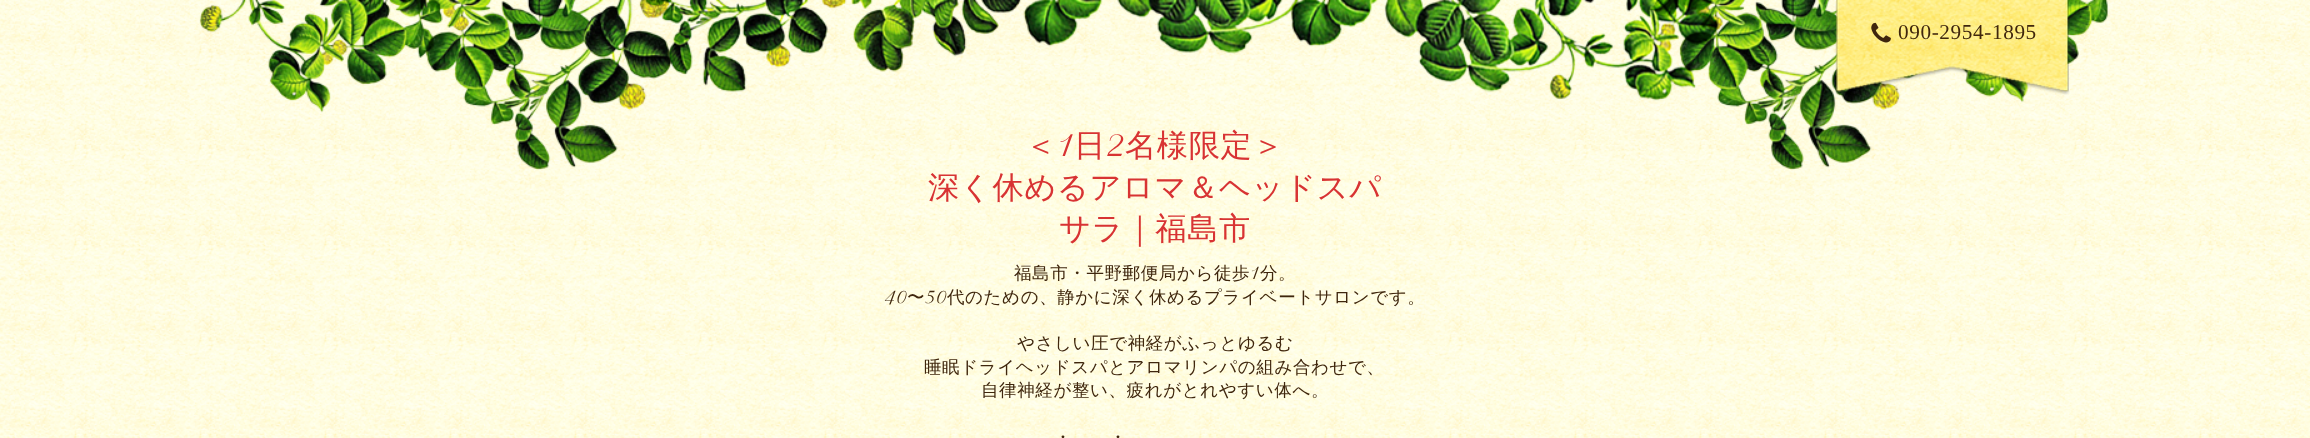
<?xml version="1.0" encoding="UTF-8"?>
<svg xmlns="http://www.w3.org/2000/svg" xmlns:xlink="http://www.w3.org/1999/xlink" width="2310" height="438">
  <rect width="100%" height="100%" fill="#ffffff" />
  <image x="0" y="0" width="2310" height="438" xlink:href="image1.png" />
  <image x="199" y="0" width="1910" height="170" xlink:href="image2.png" />
  <image x="1835" y="0" width="235" height="95" xlink:href="image3.png" />
  <image x="1871" y="22" width="20" height="21" xlink:href="image4.png" />
  <text x="1898" y="39" style="font-family: Liberation Serif; font-size: 21.25px; letter-spacing: 0.6px; fill: #3f260d">090-2954-1895</text>
  <text x="1025" y="156" style="font-family: WenQuanYi Zen Hei; font-size: 31.25px; font-weight: 500; letter-spacing: 0.6px; fill: #d83333">＜</text>
  <text x="1057" y="156" style="font-family: Petit Formal Script; font-size: 31.25px; letter-spacing: 0.6px; fill: #d83333">1</text>
  <text x="1074" y="156" style="font-family: WenQuanYi Zen Hei; font-size: 31.25px; font-weight: 500; letter-spacing: 0.6px; fill: #d83333">日</text>
  <text x="1106" y="156" style="font-family: Petit Formal Script; font-size: 31.25px; letter-spacing: 0.6px; fill: #d83333">2</text>
  <text x="1125" y="156" style="font-family: WenQuanYi Zen Hei; font-size: 31.25px; font-weight: 500; letter-spacing: 0.6px; fill: #d83333">名様限定＞</text>
  <text x="928" y="198" style="font-family: WenQuanYi Zen Hei; font-size: 31.25px; font-weight: 500; letter-spacing: 0.6px; fill: #d83333">深く休めるアロマ＆ヘッドスパ</text>
  <text x="1059" y="239" style="font-family: WenQuanYi Zen Hei; font-size: 31.25px; font-weight: 500; letter-spacing: 0.6px; fill: #d83333">サラ｜福島市</text>
  <text x="1014" y="279" style="font-family: WenQuanYi Zen Hei; font-size: 17.5px; font-weight: 500; letter-spacing: 0.6px; fill: #3f260d">福島市・平野郵便局から徒歩</text>
  <text x="1250" y="279" style="font-family: Petit Formal Script; font-size: 17.5px; letter-spacing: 0.6px; fill: #3f260d">1</text>
  <text x="1260" y="279" style="font-family: WenQuanYi Zen Hei; font-size: 17.5px; font-weight: 500; letter-spacing: 0.6px; fill: #3f260d">分。</text>
  <text x="884" y="303" style="font-family: Petit Formal Script; font-size: 17.5px; letter-spacing: 0.6px; fill: #3f260d">40</text>
  <text x="907" y="303" style="font-family: WenQuanYi Zen Hei; font-size: 17.5px; font-weight: 500; letter-spacing: 0.6px; fill: #3f260d">〜</text>
  <text x="925" y="303" style="font-family: Petit Formal Script; font-size: 17.5px; letter-spacing: 0.6px; fill: #3f260d">50</text>
  <text x="947" y="303" style="font-family: WenQuanYi Zen Hei; font-size: 17.5px; font-weight: 500; letter-spacing: 0.6px; fill: #3f260d">代のための、静かに深く休めるプライベートサロンです。</text>
  <text x="1017" y="349" style="font-family: WenQuanYi Zen Hei; font-size: 17.5px; font-weight: 500; letter-spacing: 0.6px; fill: #3f260d">やさしい圧で神経がふっとゆるむ</text>
  <text x="924" y="373" style="font-family: WenQuanYi Zen Hei; font-size: 17.5px; font-weight: 500; letter-spacing: 0.6px; fill: #3f260d">睡眠ドライヘッドスパとアロマリンパの組み合わせで、</text>
  <text x="981" y="396" style="font-family: WenQuanYi Zen Hei; font-size: 17.5px; font-weight: 500; letter-spacing: 0.6px; fill: #3f260d">自律神経が整い、疲れがとれやすい体へ。</text>
  <text x="1054" y="443" style="font-family: WenQuanYi Zen Hei; font-size: 17.5px; font-weight: 500; letter-spacing: 0.6px; fill: #3f260d">・</text>
  <text x="1109" y="443" style="font-family: WenQuanYi Zen Hei; font-size: 17.5px; font-weight: 500; letter-spacing: 0.6px; fill: #3f260d">・</text>
</svg>
